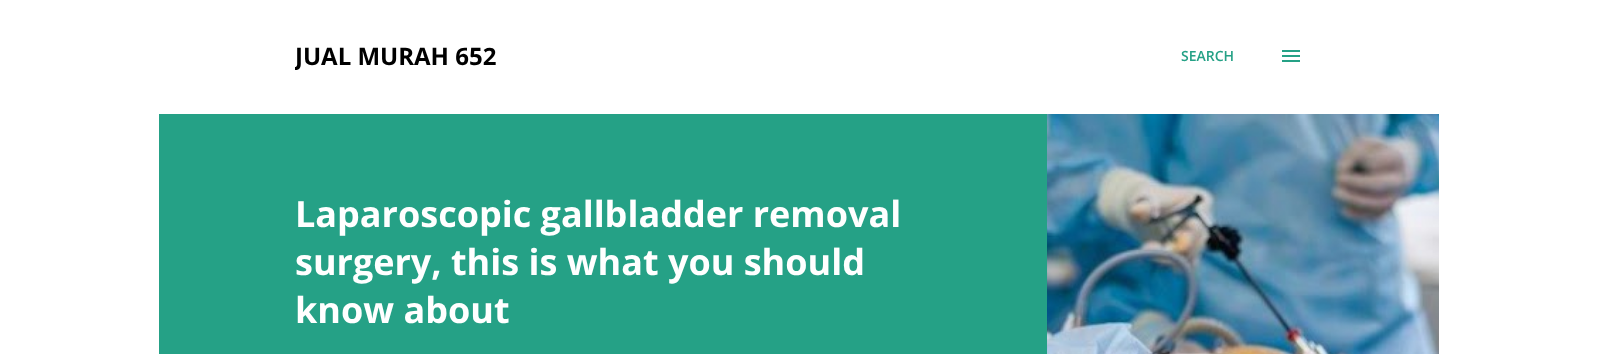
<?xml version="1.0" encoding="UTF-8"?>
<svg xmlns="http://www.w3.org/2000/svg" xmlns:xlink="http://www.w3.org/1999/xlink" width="1597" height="354">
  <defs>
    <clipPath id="clip1"><rect x="295" y="44" width="940" height="38" /></clipPath>
  </defs>
  <rect width="100%" height="100%" fill="#ffffff" />
  <image x="1282" y="50" width="18" height="12" xlink:href="image1.png" />
  <rect x="159" y="114" width="888" height="240" fill="#25a186" />
  <image x="1047" y="114" width="392" height="240" xlink:href="image2.png" />
  <g clip-path="url(#clip1)">
    <text x="295" y="65" style="font-family: Open Sans; font-size: 24px; font-weight: bold; fill: #000000">JUAL MURAH 652</text>
  </g>
  <text x="1181" y="61" style="font-family: Open Sans; font-size: 14px; font-weight: 600; fill: #25a186">SEARCH</text>
  <text x="295" y="227" style="font-family: Open Sans; font-size: 36px; font-weight: bold; fill: #ffffff">Laparoscopic gallbladder removal</text>
  <text x="295" y="275" style="font-family: Open Sans; font-size: 36px; font-weight: bold; fill: #ffffff">surgery, this is what you should</text>
  <text x="295" y="323" style="font-family: Open Sans; font-size: 36px; font-weight: bold; fill: #ffffff">know about</text>
</svg>
